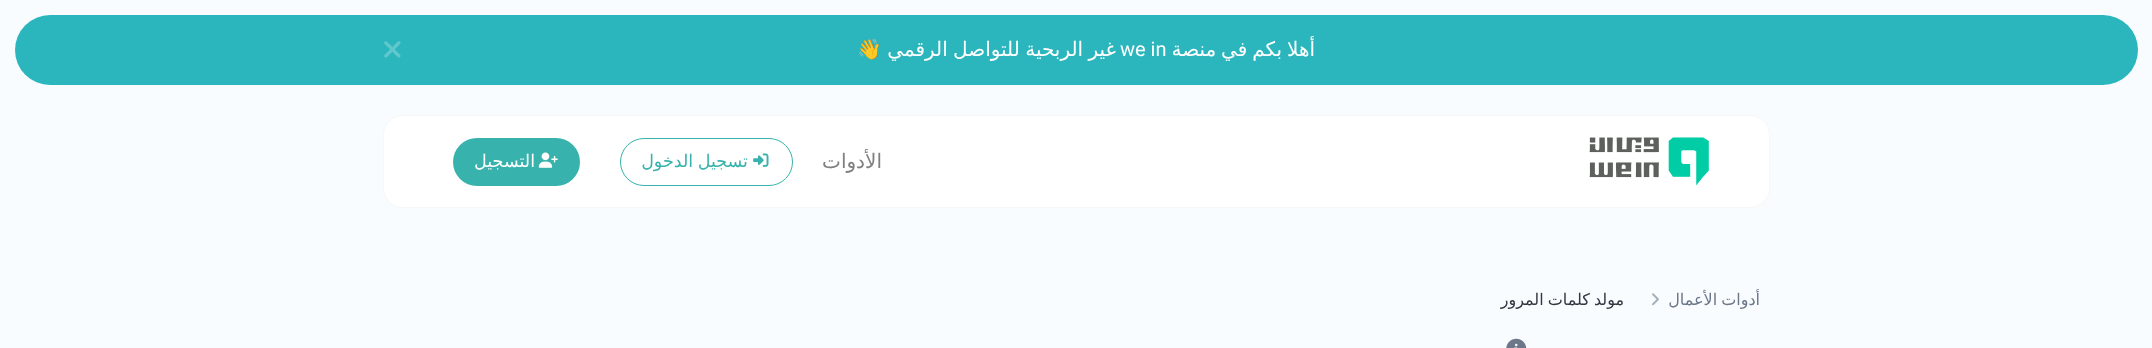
<?xml version="1.0" encoding="UTF-8"?>
<svg xmlns="http://www.w3.org/2000/svg" xmlns:xlink="http://www.w3.org/1999/xlink" width="2152" height="348">
  <rect width="100%" height="100%" fill="#f9fcff" />
  <rect x="15" y="15" width="2123" height="70" rx="35" fill="#2bb6bd" />
  <image x="384" y="41" width="17" height="17" xlink:href="image1.png" />
  <rect x="383.5" y="115.5" width="1386" height="92" rx="19.5" fill="#ffffff" stroke="#f6f8f8" />
  <image x="1589" y="137" width="120" height="49" xlink:href="image2.png" />
  <rect x="620.5" y="138.5" width="172" height="47" rx="23.5" fill="none" stroke="#38b2ac" />
  <image x="753" y="153" width="16" height="14" xlink:href="image3.png" />
  <rect x="453" y="138" width="127" height="48" rx="24" fill="#38b2ac" />
  <image x="538" y="152" width="20" height="16" xlink:href="image4.png" />
  <image x="1652" y="293" width="7" height="13" xlink:href="image5.png" />
  <image x="1506" y="338" width="21" height="10" xlink:href="image6.png" />
  <text x="1315" y="56" word-spacing="-1.5" style="font-family: DejaVu Sans; font-size: 20px; direction: rtl; fill: #ffffff">أهلا بكم في منصة</text>
  <text x="1120" y="56" style="font-family: Roboto; font-size: 20px; fill: #ffffff">we in</text>
  <text x="1116" y="56" word-spacing="-1" style="font-family: DejaVu Sans; font-size: 20px; direction: rtl; fill: #ffffff">غير الربحية للتواصل الرقمي</text>
  <text x="882" y="56" style="font-family: Noto Color Emoji; font-size: 20px; direction: rtl; fill: #ffffff">👋</text>
  <text x="882" y="168" style="font-family: DejaVu Sans; font-size: 20px; direction: rtl; fill: #808080">الأدوات</text>
  <text x="748" y="167" word-spacing="-1" style="font-family: DejaVu Sans; font-size: 17.5px; direction: rtl; fill: #38b2ac">تسجيل الدخول</text>
  <text x="535" y="167" style="font-family: DejaVu Sans; font-size: 17.5px; direction: rtl; fill: #ffffff">التسجيل</text>
  <text x="1760" y="305" word-spacing="-1" style="font-family: DejaVu Sans; font-size: 16px; direction: rtl; fill: #6c7789">أدوات الأعمال</text>
  <text x="1624" y="305" word-spacing="-1" style="font-family: DejaVu Sans; font-size: 16px; direction: rtl; fill: #31363f">مولد كلمات المرور</text>
</svg>
